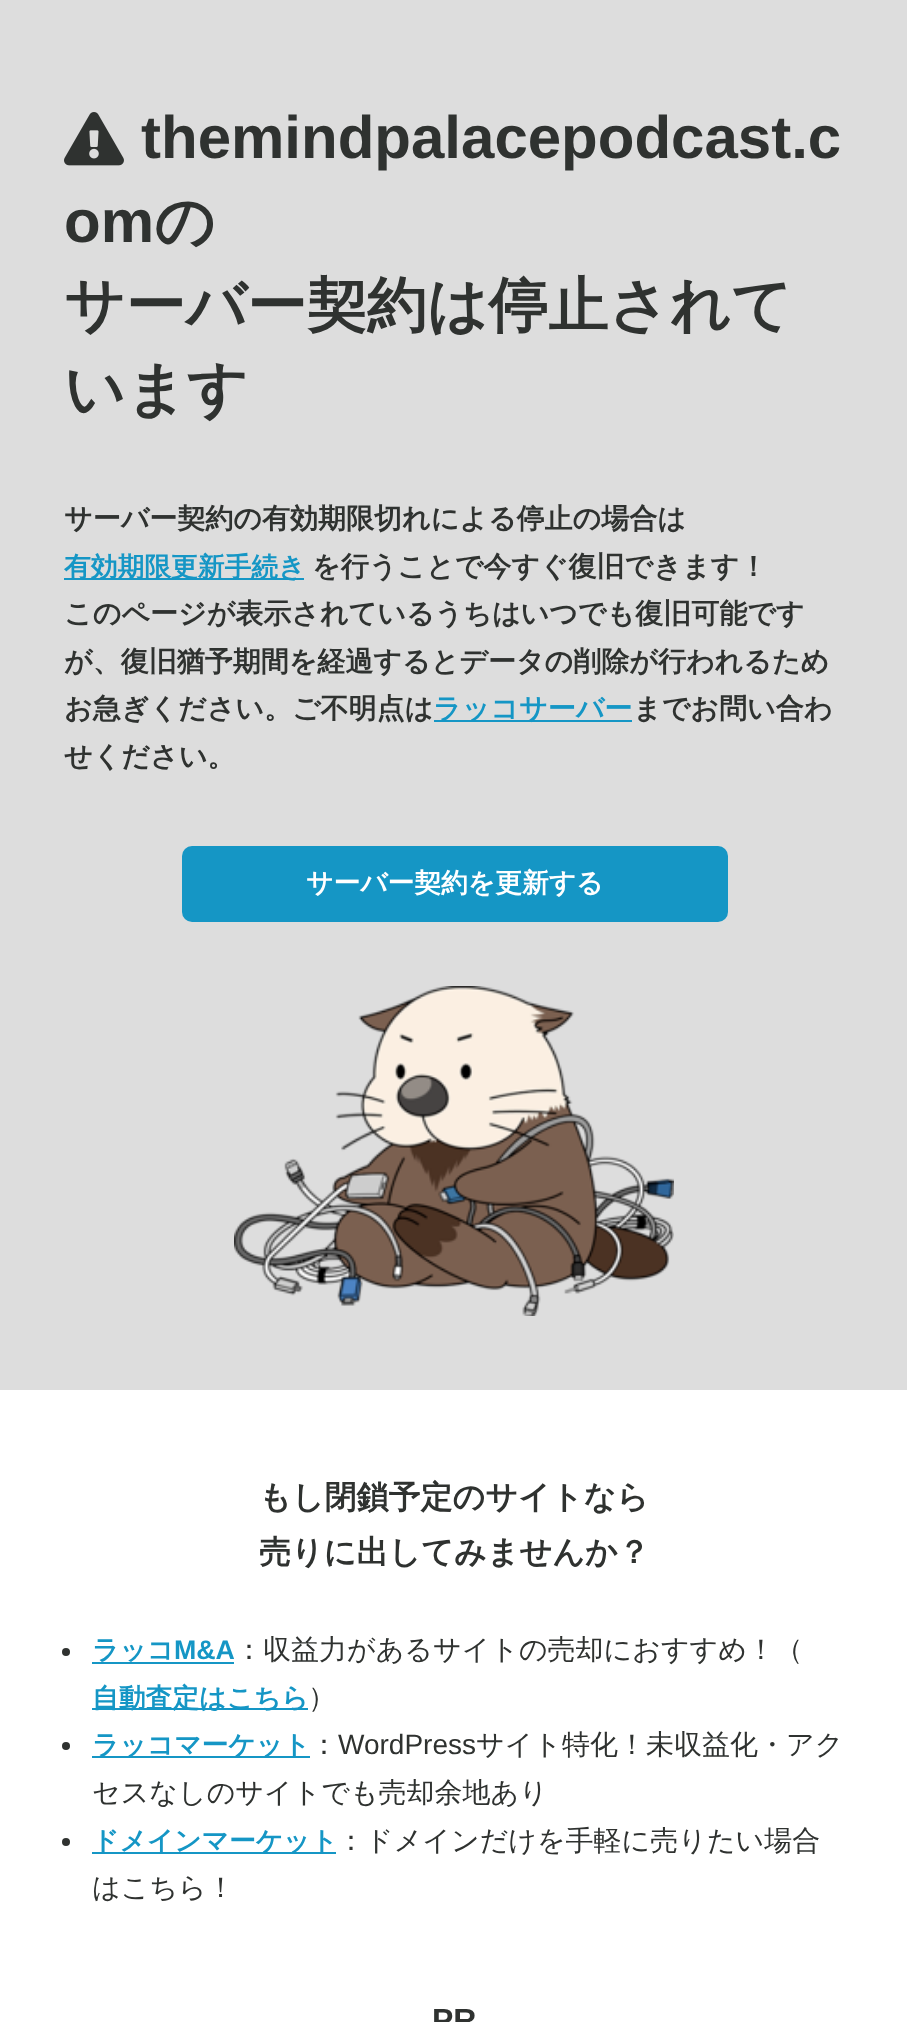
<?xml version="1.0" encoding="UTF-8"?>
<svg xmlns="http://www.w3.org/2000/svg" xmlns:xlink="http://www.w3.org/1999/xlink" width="907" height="2022">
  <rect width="100%" height="100%" fill="#ffffff" />
  <rect width="907" height="1390" fill="#dddddd" />
  <image x="64" y="112" width="60" height="54" xlink:href="image1.png" />
  <rect x="64" y="578" width="240" height="2" fill="#1596c5" />
  <rect x="434" y="720" width="198" height="2" fill="#1596c5" />
  <rect x="182" y="846" width="546" height="76" rx="10" fill="#1596c5" />
  <image x="234" y="986" width="440" height="330" xlink:href="image2.png" />
  <circle cx="66" cy="1652" r="4" fill="#2f3230" />
  <rect x="92" y="1662" width="142" height="2" fill="#1596c5" />
  <rect x="92" y="1708" width="216" height="2" fill="#1596c5" />
  <circle cx="66" cy="1746" r="4" fill="#2f3230" />
  <rect x="92" y="1756" width="218" height="2" fill="#1596c5" />
  <circle cx="66" cy="1842" r="4" fill="#2f3230" />
  <rect x="92" y="1852" width="244" height="2" fill="#1596c5" />
  <text x="141" y="158" style="font-family: Liberation Sans; font-size: 60px; font-weight: bold; fill: #2f3230">themindpalacepodcast.c</text>
  <text x="64" y="242" style="font-family: Liberation Sans; font-size: 60px; font-weight: bold; fill: #2f3230">om</text>
  <text x="154" y="242" style="font-family: WenQuanYi Zen Hei; font-size: 60px; font-weight: bold; fill: #2f3230">の</text>
  <text x="64" y="326" style="font-family: WenQuanYi Zen Hei; font-size: 60px; font-weight: bold; fill: #2f3230">サーバー契約は停止されて</text>
  <text x="64" y="410" style="font-family: WenQuanYi Zen Hei; font-size: 60px; font-weight: bold; fill: #2f3230">います</text>
  <text x="64" y="528" style="font-family: WenQuanYi Zen Hei; font-size: 28px; font-weight: bold; fill: #2f3230">サーバー契約の有効期限切れによる停止の場合は</text>
  <text x="64" y="576" style="font-family: WenQuanYi Zen Hei; font-size: 26.75px; font-weight: bold; fill: #1596c5">有効期限更新手続き</text>
  <text x="312" y="576" style="font-family: WenQuanYi Zen Hei; font-size: 28px; font-weight: bold; fill: #2f3230">を行うことで今すぐ復旧できます！</text>
  <text x="64" y="623" style="font-family: WenQuanYi Zen Hei; font-size: 28px; font-weight: bold; fill: #2f3230">このページが表示されているうちはいつでも復旧可能です</text>
  <text x="64" y="671" style="font-family: WenQuanYi Zen Hei; font-size: 28px; font-weight: bold; fill: #2f3230">が、復旧猶予期間を経過するとデータの削除が行われるため</text>
  <text x="64" y="718" style="font-family: WenQuanYi Zen Hei; font-size: 28px; font-weight: bold; fill: #2f3230">お急ぎください。ご不明点は</text>
  <text x="433" y="718" style="font-family: WenQuanYi Zen Hei; font-size: 28px; font-weight: bold; fill: #1596c5">ラッコサーバー</text>
  <text x="633" y="718" style="font-family: WenQuanYi Zen Hei; font-size: 28px; font-weight: bold; fill: #2f3230">までお問い合わ</text>
  <text x="64" y="766" style="font-family: WenQuanYi Zen Hei; font-size: 28px; font-weight: bold; fill: #2f3230">せください。</text>
  <text x="306" y="892" style="font-family: WenQuanYi Zen Hei; font-size: 26.75px; font-weight: bold; fill: #ffffff">サーバー契約を更新する</text>
  <text x="259" y="1508" style="font-family: WenQuanYi Zen Hei; font-size: 32px; font-weight: bold; fill: #2f3230">もし閉鎖予定のサイトなら</text>
  <text x="259" y="1563" style="font-family: WenQuanYi Zen Hei; font-size: 32px; font-weight: bold; fill: #2f3230">売りに出してみませんか？</text>
  <text x="92" y="1659" style="font-family: WenQuanYi Zen Hei; font-size: 26.75px; font-weight: bold; fill: #1596c5">ラッコ</text>
  <text x="174" y="1659" style="font-family: Liberation Sans; font-size: 26.75px; font-weight: bold; fill: #1596c5">M&amp;A</text>
  <text x="235" y="1659" style="font-family: WenQuanYi Zen Hei; font-size: 28px; font-weight: 500; fill: #2f3230">：収益力があるサイトの売却におすすめ！（</text>
  <text x="92" y="1707" style="font-family: WenQuanYi Zen Hei; font-size: 26.75px; font-weight: bold; fill: #1596c5">自動査定はこちら</text>
  <text x="308" y="1707" style="font-family: WenQuanYi Zen Hei; font-size: 28px; font-weight: 500; fill: #2f3230">）</text>
  <text x="92" y="1754" style="font-family: WenQuanYi Zen Hei; font-size: 26.75px; font-weight: bold; fill: #1596c5">ラッコマーケット</text>
  <text x="310" y="1754" style="font-family: WenQuanYi Zen Hei; font-size: 28px; font-weight: 500; fill: #2f3230">：</text>
  <text x="338" y="1754" style="font-family: Liberation Sans; font-size: 28px; fill: #2f3230">WordPress</text>
  <text x="476" y="1754" style="font-family: WenQuanYi Zen Hei; font-size: 28px; font-weight: 500; fill: #2f3230">サイト特化！未収益化・アク</text>
  <text x="92" y="1802" style="font-family: WenQuanYi Zen Hei; font-size: 28px; font-weight: 500; fill: #2f3230">セスなしのサイトでも売却余地あり</text>
  <text x="92" y="1850" style="font-family: WenQuanYi Zen Hei; font-size: 26.75px; font-weight: bold; fill: #1596c5">ドメインマーケット</text>
  <text x="337" y="1850" style="font-family: WenQuanYi Zen Hei; font-size: 28px; font-weight: 500; fill: #2f3230">：ドメインだけを手軽に売りたい場合</text>
  <text x="92" y="1897" style="font-family: WenQuanYi Zen Hei; font-size: 28px; font-weight: 500; fill: #2f3230">はこちら！</text>
  <text x="432" y="2031" style="font-family: Liberation Sans; font-size: 32px; font-weight: bold; fill: #2f3230">PR</text>
</svg>
